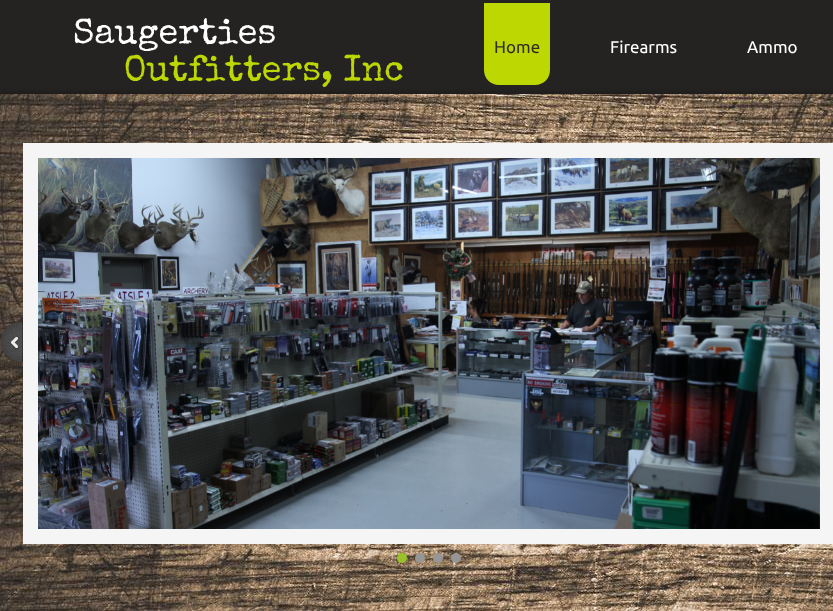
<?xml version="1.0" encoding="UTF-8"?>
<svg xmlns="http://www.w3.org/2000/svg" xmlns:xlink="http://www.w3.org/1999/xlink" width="833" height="611">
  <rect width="100%" height="100%" fill="#252322" />
  <path d="M 484 3 h 66 v 67 c 0 8.5 -6.5 15 -15 15 h -36 c -8.5 0 -15 -6.5 -15 -15 z" fill="#bdd703" />
  <rect y="94" width="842" height="517" fill="#000000" fill-opacity="0.3" filter="blur(3px)" />
  <image x="0" y="94" width="833" height="517" xlink:href="image1.png" />
  <image x="1" y="322" width="22" height="42" xlink:href="image2.png" />
  <rect x="30.5" y="150.5" width="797" height="386" fill="none" stroke="#f5f5f5" stroke-width="15" />
  <image x="38" y="158" width="782" height="371" xlink:href="image3.png" />
  <circle cx="402" cy="558" r="5" fill="#98c22a" />
  <circle cx="420" cy="558" r="5" fill="#969696" />
  <circle cx="438" cy="558" r="5" fill="#969696" />
  <circle cx="456" cy="558" r="5" fill="#969696" />
  <text x="73" y="43" style="font-family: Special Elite; font-size: 36px; fill: #ffffff">Saugerties</text>
  <text x="494" y="53" style="font-family: Ubuntu; font-size: 17px; fill: #2f2f20">Home</text>
  <text x="610" y="53" style="font-family: Ubuntu; font-size: 17px; fill: #ffffff">Firearms</text>
  <text x="747" y="53" style="font-family: Ubuntu; font-size: 17px; fill: #ffffff">Ammo</text>
  <text x="124" y="80" style="font-family: Special Elite; font-size: 36px; fill: #bdd703">Outfitters, Inc</text>
</svg>
